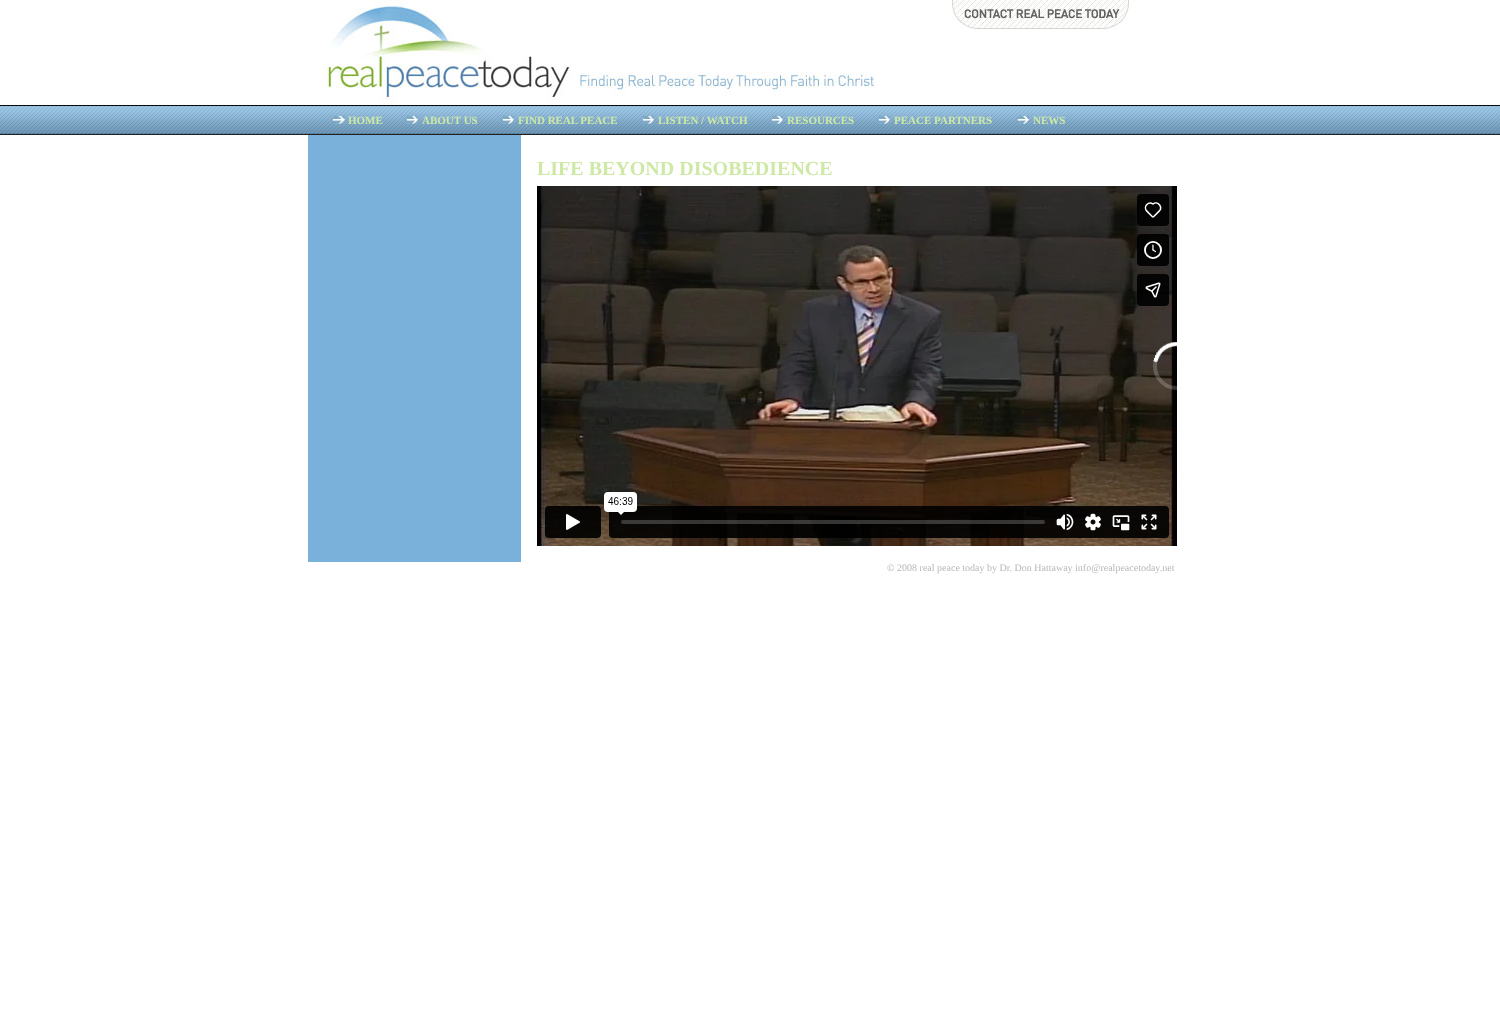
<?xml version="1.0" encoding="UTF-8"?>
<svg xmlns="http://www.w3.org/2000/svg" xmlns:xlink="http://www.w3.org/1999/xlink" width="1500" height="1032">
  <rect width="100%" height="100%" fill="#ffffff" />
  <image x="0" y="104" width="1500" height="31" xlink:href="image1.png" />
  <image x="308" y="0" width="885" height="105" xlink:href="image2.png" />
  <image x="952" y="0" width="177" height="29" xlink:href="image3.png" />
  <image x="333" y="116" width="12" height="8" xlink:href="image4.png" />
  <image x="407" y="116" width="11" height="8" xlink:href="image5.png" />
  <image x="503" y="116" width="11" height="8" xlink:href="image5.png" />
  <image x="643" y="116" width="11" height="8" xlink:href="image5.png" />
  <image x="772" y="116" width="11" height="8" xlink:href="image5.png" />
  <image x="879" y="116" width="11" height="8" xlink:href="image5.png" />
  <image x="1018" y="116" width="11" height="8" xlink:href="image5.png" />
  <rect x="308" y="135" width="213" height="427" fill="#7ab1da" />
  <image x="537" y="186" width="640" height="360" xlink:href="image6.png" />
  <text x="348" y="124" style="font-family: Liberation Serif; font-size: 11px; font-weight: bold; fill: #cde9a5">HOME</text>
  <text x="422" y="124" style="font-family: Liberation Serif; font-size: 11px; font-weight: bold; fill: #cde9a5">ABOUT US</text>
  <text x="518" y="124" style="font-family: Liberation Serif; font-size: 11px; font-weight: bold; fill: #cde9a5">FIND REAL PEACE</text>
  <text x="658" y="124" style="font-family: Liberation Serif; font-size: 11px; font-weight: bold; fill: #cde9a5">LISTEN / WATCH</text>
  <text x="787" y="124" style="font-family: Liberation Serif; font-size: 11px; font-weight: bold; fill: #cde9a5">RESOURCES</text>
  <text x="894" y="124" style="font-family: Liberation Serif; font-size: 11px; font-weight: bold; fill: #cde9a5">PEACE PARTNERS</text>
  <text x="1033" y="124" style="font-family: Liberation Serif; font-size: 11px; font-weight: bold; fill: #cde9a5">NEWS</text>
  <text x="537" y="175" style="font-family: Liberation Serif; font-size: 20px; font-weight: bold; fill: #cde9a5">LIFE BEYOND DISOBEDIENCE</text>
  <text x="887" y="571" style="font-family: Liberation Serif; font-size: 10px; fill: #b6b6b6">© 2008 real peace today by Dr. Don Hattaway info@realpeacetoday.net</text>
</svg>
